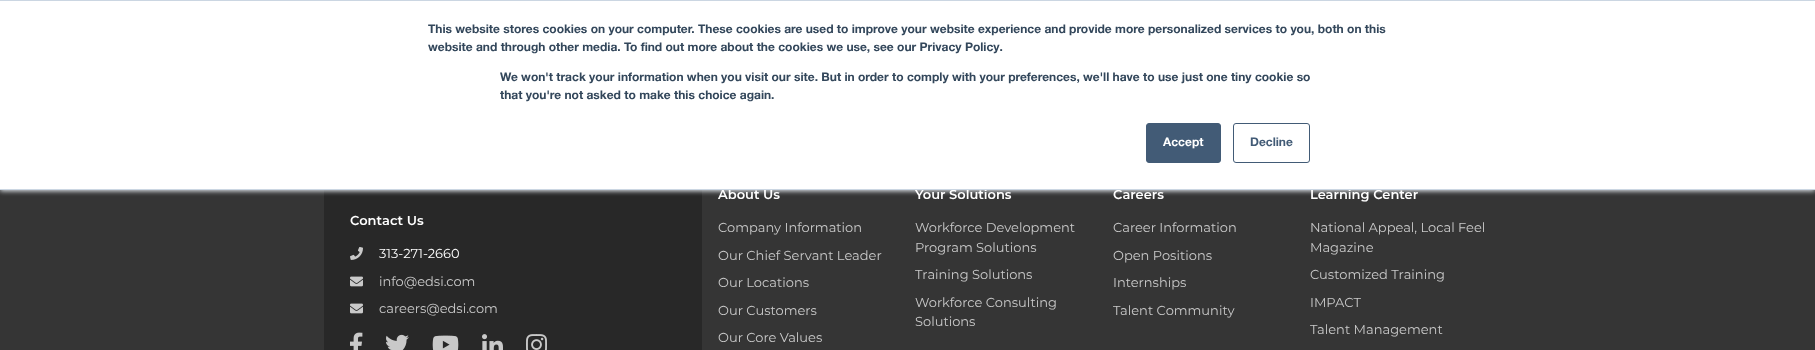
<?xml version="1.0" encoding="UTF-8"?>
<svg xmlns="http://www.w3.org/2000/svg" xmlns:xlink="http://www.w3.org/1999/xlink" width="1815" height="350">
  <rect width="100%" height="100%" fill="#353535" />
  <rect x="324" y="190" width="378" height="160" fill="#282828" />
  <rect y="1" width="1815" height="190" fill="#eaf0f6" filter="blur(2.5px)" />
  <rect y="1" width="1815" height="188" fill="#ffffff" />
  <rect width="1815" height="1" fill="#cbd6e2" />
  <rect x="1146.5" y="123.5" width="74" height="39" rx="2.5" fill="#425b76" stroke="#425b76" />
  <rect x="1233.5" y="123.5" width="76" height="39" rx="2.5" fill="none" stroke="#425b76" />
  <image x="350" y="247" width="13" height="13" xlink:href="image1.png" />
  <image x="350" y="276" width="13" height="11" xlink:href="image2.png" />
  <image x="350" y="303" width="13" height="11" xlink:href="image2.png" />
  <image x="350" y="332" width="13" height="18" xlink:href="image3.png" />
  <image x="386" y="334" width="23" height="16" xlink:href="image4.png" />
  <image x="432" y="335" width="27" height="15" xlink:href="image5.png" />
  <image x="482" y="334" width="21" height="16" xlink:href="image6.png" />
  <image x="526" y="334" width="21" height="16" xlink:href="image7.png" />
  <text x="428" y="33" style="font-family: Helvetica Neue; font-size: 12px; font-weight: bold; fill: #33475b">This website stores cookies on your computer. These cookies are used to improve your website experience and provide more personalized services to you, both on this</text>
  <text x="428" y="51" style="font-family: Helvetica Neue; font-size: 12px; font-weight: bold; fill: #33475b">website and through other media. To find out more about the cookies we use, see our Privacy Policy.</text>
  <text x="500" y="81" style="font-family: Helvetica Neue; font-size: 12px; font-weight: bold; fill: #33475b">We won't track your information when you visit our site. But in order to comply with your preferences, we'll have to use just one tiny cookie so</text>
  <text x="500" y="99" style="font-family: Helvetica Neue; font-size: 12px; font-weight: bold; fill: #33475b">that you're not asked to make this choice again.</text>
  <text x="1163" y="146" style="font-family: Helvetica Neue; font-size: 12px; font-weight: bold; fill: #ffffff">Accept</text>
  <text x="1250" y="146" style="font-family: Helvetica Neue; font-size: 12px; font-weight: bold; fill: #425b76">Decline</text>
  <text x="350" y="225" style="font-family: Montserrat; font-size: 13px; font-weight: 600; fill: #ffffff">Contact Us</text>
  <text x="379" y="258" style="font-family: Montserrat; font-size: 13px; fill: #ffffff">313-271-2660</text>
  <text x="379" y="286" style="font-family: Montserrat; font-size: 13px; fill: #c9c9c9">info@edsi.com</text>
  <text x="379" y="313" style="font-family: Montserrat; font-size: 13px; fill: #c9c9c9">careers@edsi.com</text>
  <text x="718" y="199" style="font-family: Montserrat; font-size: 13px; font-weight: 600; fill: #ffffff">About Us</text>
  <text x="718" y="232" style="font-family: Montserrat; font-size: 13px; fill: #c9c9c9">Company Information</text>
  <text x="718" y="260" style="font-family: Montserrat; font-size: 13px; fill: #c9c9c9">Our Chief Servant Leader</text>
  <text x="718" y="287" style="font-family: Montserrat; font-size: 13px; fill: #c9c9c9">Our Locations</text>
  <text x="718" y="315" style="font-family: Montserrat; font-size: 13px; fill: #c9c9c9">Our Customers</text>
  <text x="718" y="342" style="font-family: Montserrat; font-size: 13px; fill: #c9c9c9">Our Core Values</text>
  <text x="915" y="199" style="font-family: Montserrat; font-size: 13px; font-weight: 600; fill: #ffffff">Your Solutions</text>
  <text x="915" y="232" style="font-family: Montserrat; font-size: 13px; fill: #c9c9c9">Workforce Development</text>
  <text x="915" y="252" style="font-family: Montserrat; font-size: 13px; fill: #c9c9c9">Program Solutions</text>
  <text x="915" y="279" style="font-family: Montserrat; font-size: 13px; fill: #c9c9c9">Training Solutions</text>
  <text x="915" y="307" style="font-family: Montserrat; font-size: 13px; fill: #c9c9c9">Workforce Consulting</text>
  <text x="915" y="326" style="font-family: Montserrat; font-size: 13px; fill: #c9c9c9">Solutions</text>
  <text x="1113" y="199" style="font-family: Montserrat; font-size: 13px; font-weight: 600; fill: #ffffff">Careers</text>
  <text x="1113" y="232" style="font-family: Montserrat; font-size: 13px; fill: #c9c9c9">Career Information</text>
  <text x="1113" y="260" style="font-family: Montserrat; font-size: 13px; fill: #c9c9c9">Open Positions</text>
  <text x="1113" y="287" style="font-family: Montserrat; font-size: 13px; fill: #c9c9c9">Internships</text>
  <text x="1113" y="315" style="font-family: Montserrat; font-size: 13px; fill: #c9c9c9">Talent Community</text>
  <text x="1310" y="199" style="font-family: Montserrat; font-size: 13px; font-weight: 600; fill: #ffffff">Learning Center</text>
  <rect y="189" width="1815" height="1" fill="#cbd6e2" />
  <text x="1310" y="232" style="font-family: Montserrat; font-size: 13px; fill: #c9c9c9">National Appeal, Local Feel</text>
  <text x="1310" y="252" style="font-family: Montserrat; font-size: 13px; fill: #c9c9c9">Magazine</text>
  <text x="1310" y="279" style="font-family: Montserrat; font-size: 13px; fill: #c9c9c9">Customized Training</text>
  <text x="1310" y="307" style="font-family: Montserrat; font-size: 13px; fill: #c9c9c9">IMPACT</text>
  <text x="1310" y="334" style="font-family: Montserrat; font-size: 13px; fill: #c9c9c9">Talent Management</text>
</svg>
